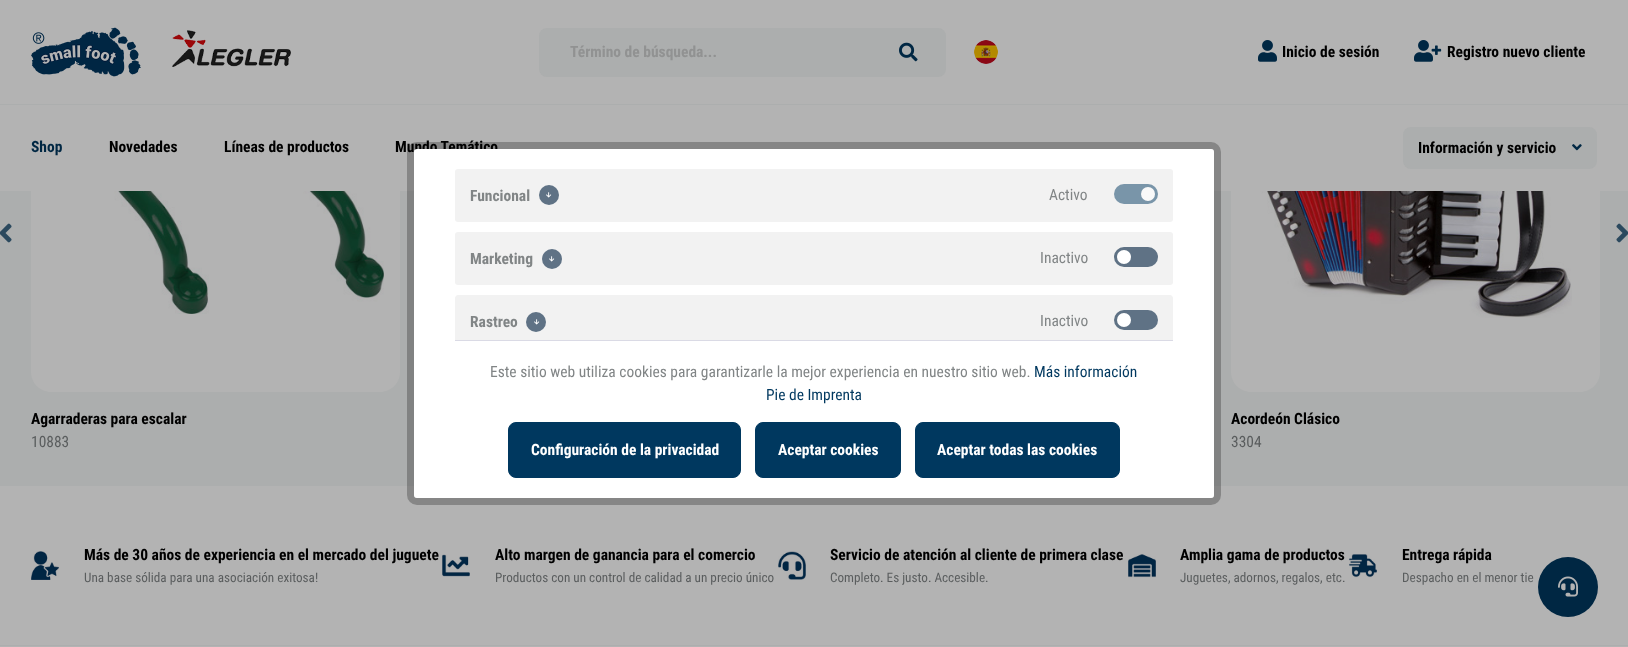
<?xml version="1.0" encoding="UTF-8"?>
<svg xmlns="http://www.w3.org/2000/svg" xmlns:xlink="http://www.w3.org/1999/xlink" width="1628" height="647">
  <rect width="100%" height="100%" fill="#acaeae" />
  <rect width="1628" height="104" fill="#b3b3b3" />
  <image x="31" y="27" width="110" height="50" xlink:href="image1.png" />
  <image x="172" y="30" width="119" height="37" xlink:href="image2.png" />
  <rect x="539" y="28" width="407" height="49" rx="8" fill="#acaeae" />
  <image x="899" y="42" width="19" height="20" xlink:href="image3.png" />
  <image x="974" y="40" width="24" height="24" xlink:href="image4.png" />
  <image x="1258" y="40" width="19" height="22" xlink:href="image5.png" />
  <image x="1414" y="40" width="28" height="22" xlink:href="image6.png" />
  <rect y="105" width="1628" height="86" fill="#b3b3b3" />
  <rect x="1403" y="127" width="194" height="42" rx="8" fill="#acaeae" />
  <image x="1572" y="144" width="10" height="7" xlink:href="image7.png" />
  <image x="0" y="223" width="12" height="20" xlink:href="image8.png" />
  <image x="1616" y="223" width="12" height="20" xlink:href="image9.png" />
  <rect x="31" y="191" width="369" height="170" fill="#b3b3b3" />
  <image x="47" y="191" width="337" height="123" xlink:href="image10.png" />
  <path d="M 31 361 h 369 v 11 c 0 11 -9 20 -20 20 h -329 c -11 0 -20 -9 -20 -20 z" fill="#b3b3b3" />
  <rect x="1231" y="191" width="369" height="170" fill="#b3b3b3" />
  <image x="1247" y="191" width="325" height="127" xlink:href="image11.png" />
  <path d="M 1231 361 h 369 v 11 c 0 11 -9 20 -20 20 h -329 c -11 0 -20 -9 -20 -20 z" fill="#b3b3b3" />
  <rect y="486" width="1628" height="159" fill="#b3b3b3" />
  <image x="31" y="551" width="28" height="29" xlink:href="image12.png" />
  <image x="442" y="554" width="28" height="23" xlink:href="image13.png" />
  <image x="778" y="551" width="28" height="29" xlink:href="image14.png" />
  <image x="1128" y="554" width="28" height="24" xlink:href="image15.png" />
  <image x="1349" y="554" width="28" height="24" xlink:href="image16.png" />
  <rect y="646" width="1628" height="1" fill="#b3b3b3" />
  <circle cx="1568" cy="587" r="30" fill="#002743" />
  <image x="1558" y="576" width="20" height="21" xlink:href="image18.png" />
  <text x="570" y="57" style="font-family: Roboto Condensed; font-size: 15.5px; font-weight: bold; fill: #919292">Término de búsqueda...</text>
  <text x="1282" y="57" style="font-family: Roboto Condensed; font-size: 15.5px; font-weight: bold; fill: #000000">Inicio de sesión</text>
  <text x="1447" y="57" style="font-family: Roboto Condensed; font-size: 15.5px; font-weight: bold; fill: #000000">Registro nuevo cliente</text>
  <text x="31" y="152" style="font-family: Roboto Condensed; font-size: 15.5px; font-weight: bold; fill: #002743">Shop</text>
  <text x="109" y="152" style="font-family: Roboto Condensed; font-size: 15.5px; font-weight: bold; fill: #000000">Novedades</text>
  <text x="224" y="152" style="font-family: Roboto Condensed; font-size: 15.5px; font-weight: bold; fill: #000000">Líneas de productos</text>
  <text x="395" y="152" style="font-family: Roboto Condensed; font-size: 15.5px; font-weight: bold; fill: #000000">Mundo Temático</text>
  <text x="1418" y="153" style="font-family: Roboto Condensed; font-size: 15.5px; font-weight: bold; fill: #000000">Información y servicio</text>
  <text x="31" y="424" style="font-family: Roboto Condensed; font-size: 15.5px; font-weight: bold; fill: #000000">Agarraderas para escalar</text>
  <text x="31" y="447" style="font-family: Roboto Condensed; font-size: 15.5px; fill: #5a5d5e">10883</text>
  <text x="1231" y="424" style="font-family: Roboto Condensed; font-size: 15.5px; font-weight: bold; fill: #000000">Acordeón Clásico</text>
  <text x="1231" y="447" style="font-family: Roboto Condensed; font-size: 15.5px; fill: #5a5d5e">3304</text>
  <text x="84" y="560" style="font-family: Roboto Condensed; font-size: 15.5px; font-weight: bold; fill: #000000">Más de 30 años de experiencia en el mercado del juguete</text>
  <text x="84" y="582" style="font-family: Roboto Condensed; font-size: 13.2px; fill: #5a5d5e">Una base sólida para una asociación exitosa!</text>
  <text x="495" y="560" style="font-family: Roboto Condensed; font-size: 15.5px; font-weight: bold; fill: #000000">Alto margen de ganancia para el comercio</text>
  <text x="495" y="582" style="font-family: Roboto Condensed; font-size: 13.2px; fill: #5a5d5e">Productos con un control de calidad a un precio único</text>
  <text x="830" y="560" style="font-family: Roboto Condensed; font-size: 15.5px; font-weight: bold; fill: #000000">Servicio de atención al cliente de primera clase</text>
  <text x="830" y="582" style="font-family: Roboto Condensed; font-size: 13.2px; fill: #5a5d5e">Completo. Es justo. Accesible.</text>
  <text x="1180" y="560" style="font-family: Roboto Condensed; font-size: 15.5px; font-weight: bold; fill: #000000">Amplia gama de productos</text>
  <text x="1180" y="582" style="font-family: Roboto Condensed; font-size: 13.2px; fill: #5a5d5e">Juguetes, adornos, regalos, etc.</text>
  <text x="1402" y="560" style="font-family: Roboto Condensed; font-size: 15.5px; font-weight: bold; fill: #000000">Entrega rápida</text>
  <text x="1402" y="582" style="font-family: Roboto Condensed; font-size: 13.2px; fill: #5a5d5e">Despacho en el menor tie</text>
  <rect x="410.5" y="145.5" width="807" height="356" rx="6.5" fill="none" stroke="#000000" stroke-opacity="0.25" stroke-width="7" />
  <rect x="414" y="149" width="800" height="349" rx="3" fill="#ffffff" />
  <rect x="455" y="340" width="718" height="1" fill="#dadae5" />
  <rect x="455" y="169" width="718" height="53" rx="3" fill="#f2f2f2" />
  <text x="470" y="201" style="font-family: Roboto Condensed; font-size: 15.5px; font-weight: bold; fill: #818586">Funcional</text>
  <circle cx="549" cy="195" r="10" fill="#5f7285" />
  <image x="546" y="192" width="6" height="6" xlink:href="image17.png" />
  <text x="1049" y="200" style="font-family: Roboto Condensed; font-size: 15.5px; fill: #818586">Activo</text>
  <rect x="1114" y="184" width="44" height="20" rx="10" fill="#7995a9" />
  <circle cx="1148" cy="194" r="7" fill="#f9f9f9" />
  <rect x="455" y="232" width="718" height="53" rx="3" fill="#f2f2f2" />
  <text x="470" y="264" style="font-family: Roboto Condensed; font-size: 15.5px; font-weight: bold; fill: #818586">Marketing</text>
  <circle cx="552" cy="259" r="10" fill="#5f7285" />
  <image x="549" y="256" width="6" height="6" xlink:href="image17.png" />
  <text x="1040" y="263" style="font-family: Roboto Condensed; font-size: 15.5px; fill: #818586">Inactivo</text>
  <rect x="1114" y="247" width="44" height="20" rx="10" fill="#5f7285" />
  <circle cx="1124" cy="257" r="7" fill="#ffffff" />
  <path d="M 458 295 h 712 c 1.5 0 3 1.5 3 3 v 42 h -718 v -42 c 0 -1.5 1.5 -3 3 -3 z" fill="#f2f2f2" />
  <text x="470" y="327" style="font-family: Roboto Condensed; font-size: 15.5px; font-weight: bold; fill: #818586">Rastreo</text>
  <circle cx="536" cy="322" r="10" fill="#5f7285" />
  <image x="534" y="319" width="6" height="6" xlink:href="image17.png" />
  <text x="1040" y="326" style="font-family: Roboto Condensed; font-size: 15.5px; fill: #818586">Inactivo</text>
  <rect x="1114" y="310" width="44" height="20" rx="10" fill="#5f7285" />
  <circle cx="1124" cy="320" r="7" fill="#ffffff" />
  <text x="490" y="377" style="font-family: Roboto Condensed; font-size: 15.5px; fill: #818586">Este sitio web utiliza cookies para garantizarle la mejor experiencia en nuestro sitio web.</text>
  <text x="1034" y="377" style="font-family: Roboto Condensed; font-size: 15.5px; fill: #00385f">Más información</text>
  <text x="766" y="400" style="font-family: Roboto Condensed; font-size: 15.5px; fill: #00385f">Pie de Imprenta</text>
  <rect x="508.5" y="422.5" width="232" height="55" rx="7.5" fill="#00385f" stroke="#00385f" />
  <text x="531" y="455" style="font-family: Roboto Condensed; font-size: 15.5px; font-weight: bold; fill: #ffffff">Configuración de la privacidad</text>
  <rect x="755.5" y="422.5" width="145" height="55" rx="7.5" fill="#00385f" stroke="#00385f" />
  <text x="778" y="455" style="font-family: Roboto Condensed; font-size: 15.5px; font-weight: bold; fill: #ffffff">Aceptar cookies</text>
  <rect x="915.5" y="422.5" width="204" height="55" rx="7.5" fill="#00385f" stroke="#00385f" />
  <text x="937" y="455" style="font-family: Roboto Condensed; font-size: 15.5px; font-weight: bold; fill: #ffffff">Aceptar todas las cookies</text>
</svg>
